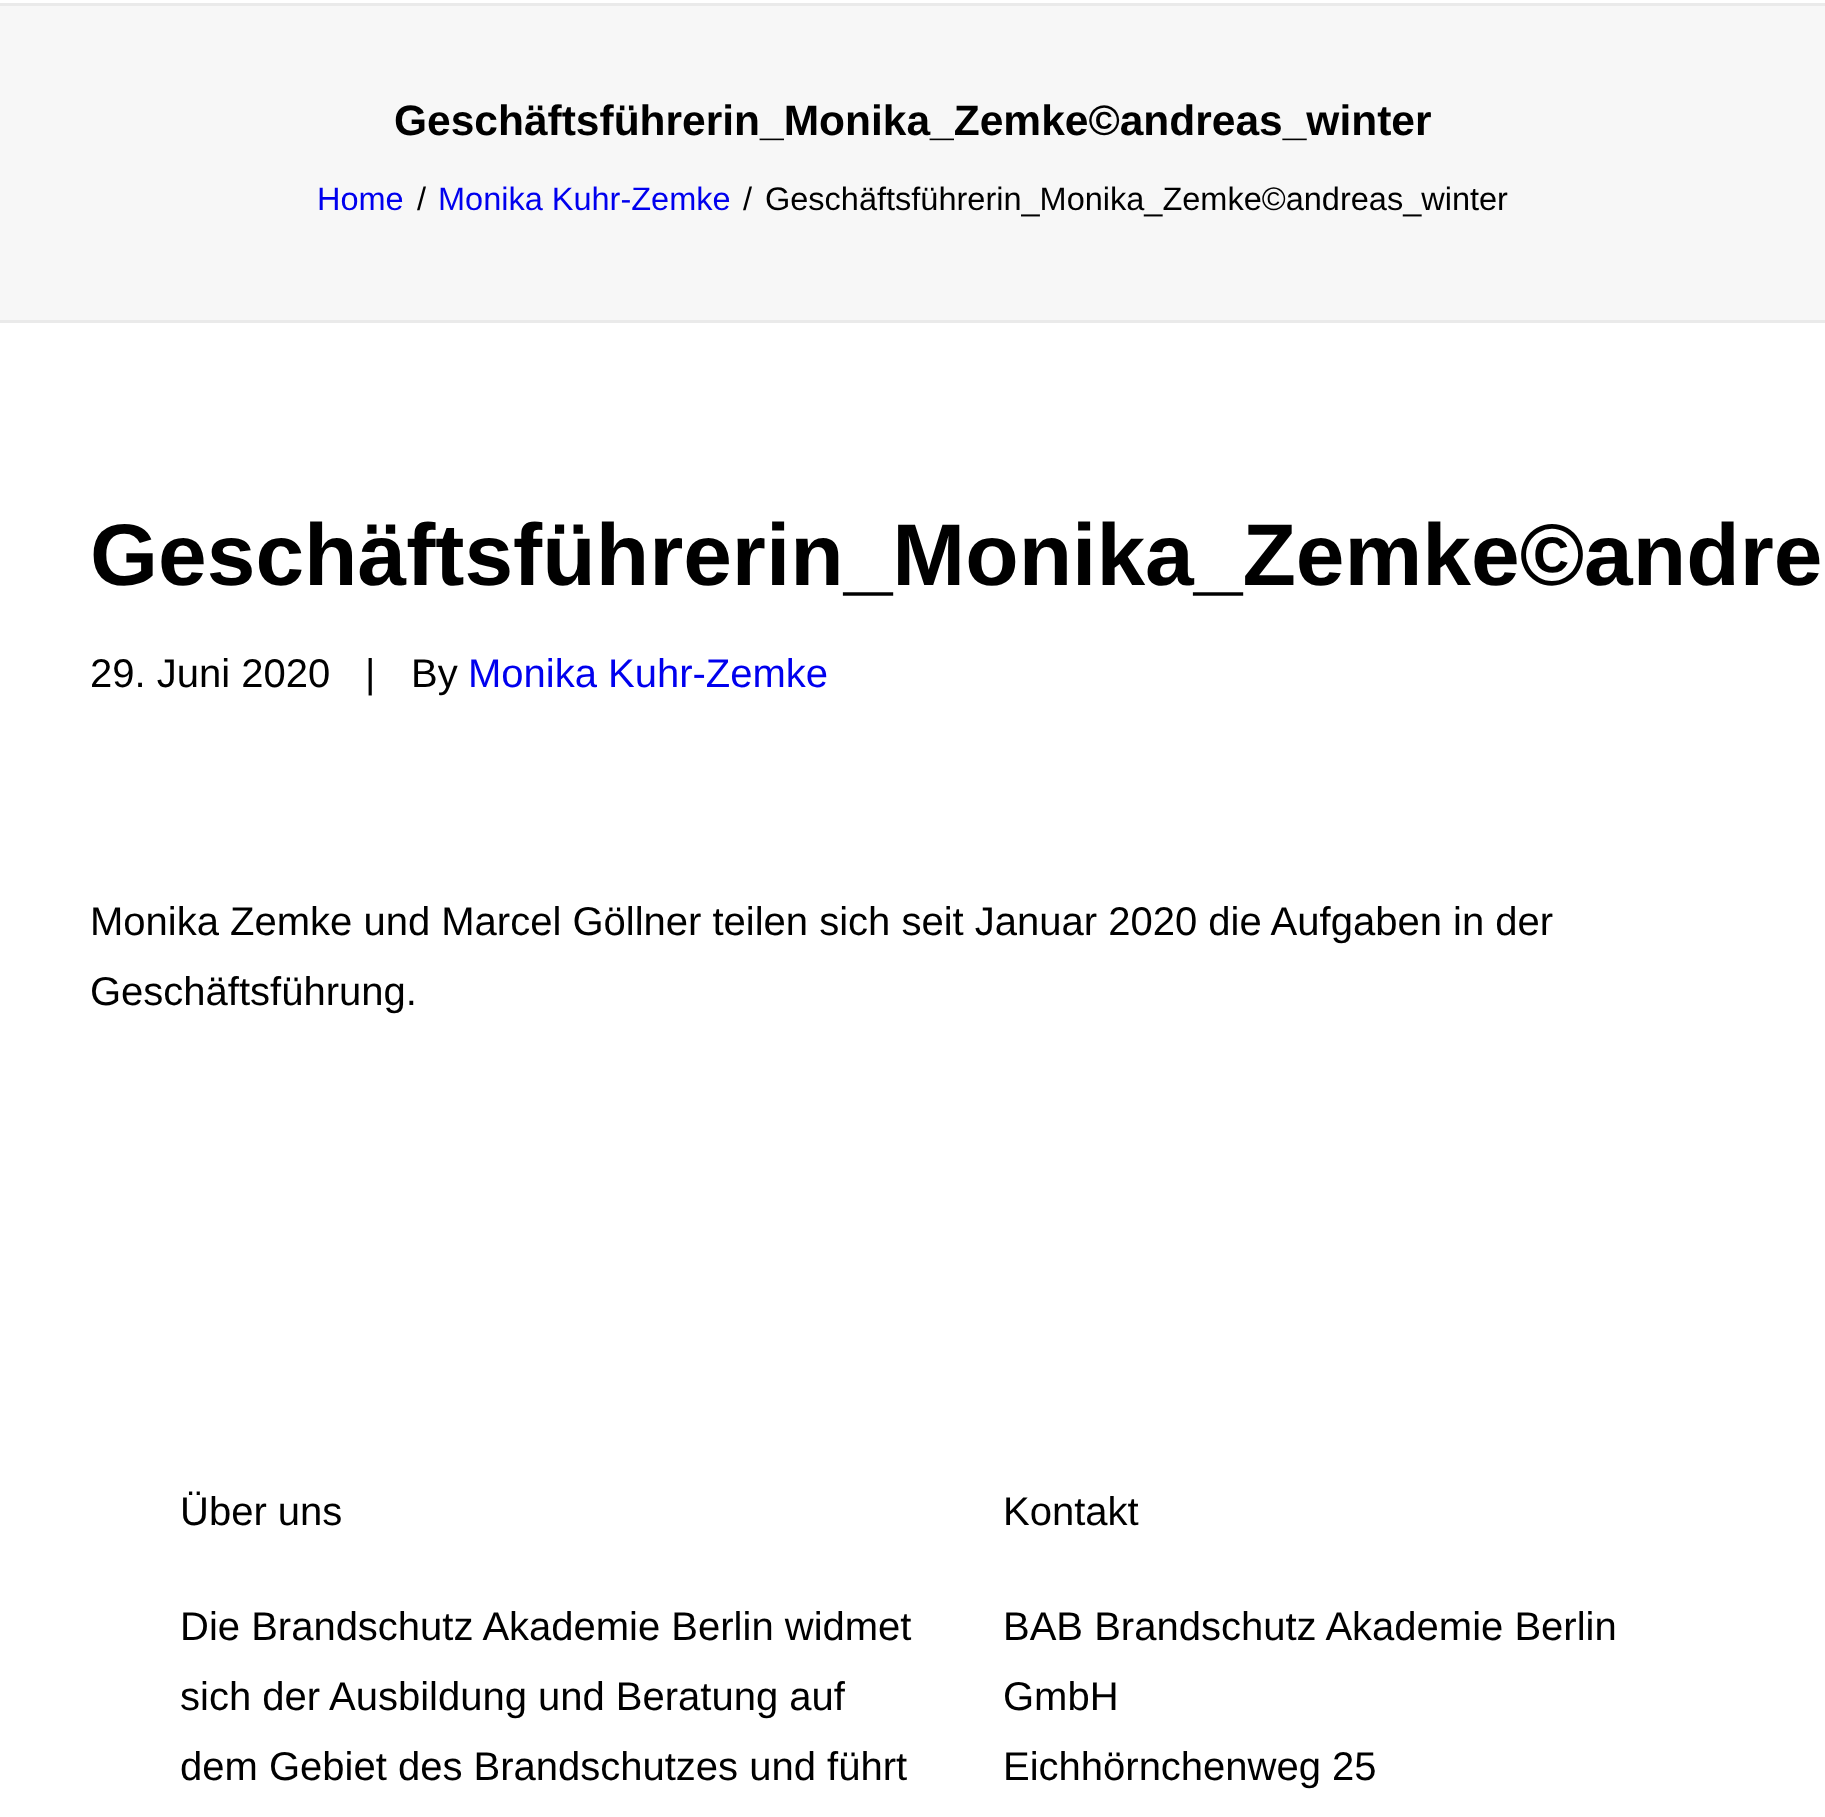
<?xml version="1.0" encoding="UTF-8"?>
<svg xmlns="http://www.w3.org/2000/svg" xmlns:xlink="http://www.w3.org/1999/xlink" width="1825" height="1817">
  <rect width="100%" height="100%" fill="#ffffff" />
  <rect y="6" width="1825" height="314" fill="#f7f7f7" />
  <rect y="3" width="1825" height="3" fill="#eaeaea" />
  <rect y="320" width="1825" height="3" fill="#eaeaea" />
  <text x="394" y="135" style="font-family: Liberation Sans; font-size: 42.5px; font-weight: bold; fill: #000000">Geschäftsführerin_Monika_Zemke©andreas_winter</text>
  <text x="317" y="210" style="font-family: Liberation Sans; font-size: 32.5px; fill: #0000ee">Home</text>
  <text x="417" y="210" style="font-family: Liberation Sans; font-size: 32.5px; fill: #000000">/</text>
  <text x="438" y="210" style="font-family: Liberation Sans; font-size: 32.5px; fill: #0000ee">Monika Kuhr-Zemke</text>
  <text x="743" y="210" style="font-family: Liberation Sans; font-size: 32.5px; fill: #000000">/</text>
  <text x="765" y="210" style="font-family: Liberation Sans; font-size: 32.5px; fill: #000000">Geschäftsführerin_Monika_Zemke©andreas_winter</text>
  <text x="90" y="585" style="font-family: Liberation Sans; font-size: 87.5px; font-weight: bold; fill: #000000">Geschäftsführerin_Monika_Zemke©andre</text>
  <text x="90" y="687" style="font-family: Liberation Sans; font-size: 40px; fill: #000000">29. Juni 2020</text>
  <text x="365" y="687" style="font-family: Liberation Sans; font-size: 40px; fill: #000000">|</text>
  <text x="411" y="687" style="font-family: Liberation Sans; font-size: 40px; fill: #000000">By</text>
  <text x="468" y="687" style="font-family: Liberation Sans; font-size: 40px; fill: #0000ee">Monika Kuhr-Zemke</text>
  <text x="90" y="935" style="font-family: Liberation Sans; font-size: 40px; fill: #000000">Monika Zemke und Marcel Göllner teilen sich seit Januar 2020 die Aufgaben in der</text>
  <text x="90" y="1005" style="font-family: Liberation Sans; font-size: 40px; fill: #000000">Geschäftsführung.</text>
  <text x="180" y="1525" style="font-family: Liberation Sans; font-size: 40px; fill: #000000">Über uns</text>
  <text x="180" y="1640" style="font-family: Liberation Sans; font-size: 40px; fill: #000000">Die Brandschutz Akademie Berlin widmet</text>
  <text x="180" y="1710" style="font-family: Liberation Sans; font-size: 40px; fill: #000000">sich der Ausbildung und Beratung auf</text>
  <text x="180" y="1780" style="font-family: Liberation Sans; font-size: 40px; fill: #000000">dem Gebiet des Brandschutzes und führt</text>
  <text x="1003" y="1525" style="font-family: Liberation Sans; font-size: 40px; fill: #000000">Kontakt</text>
  <text x="1003" y="1640" style="font-family: Liberation Sans; font-size: 40px; fill: #000000">BAB Brandschutz Akademie Berlin</text>
  <text x="1003" y="1710" style="font-family: Liberation Sans; font-size: 40px; fill: #000000">GmbH</text>
  <text x="1003" y="1780" style="font-family: Liberation Sans; font-size: 40px; fill: #000000">Eichhörnchenweg 25</text>
</svg>
